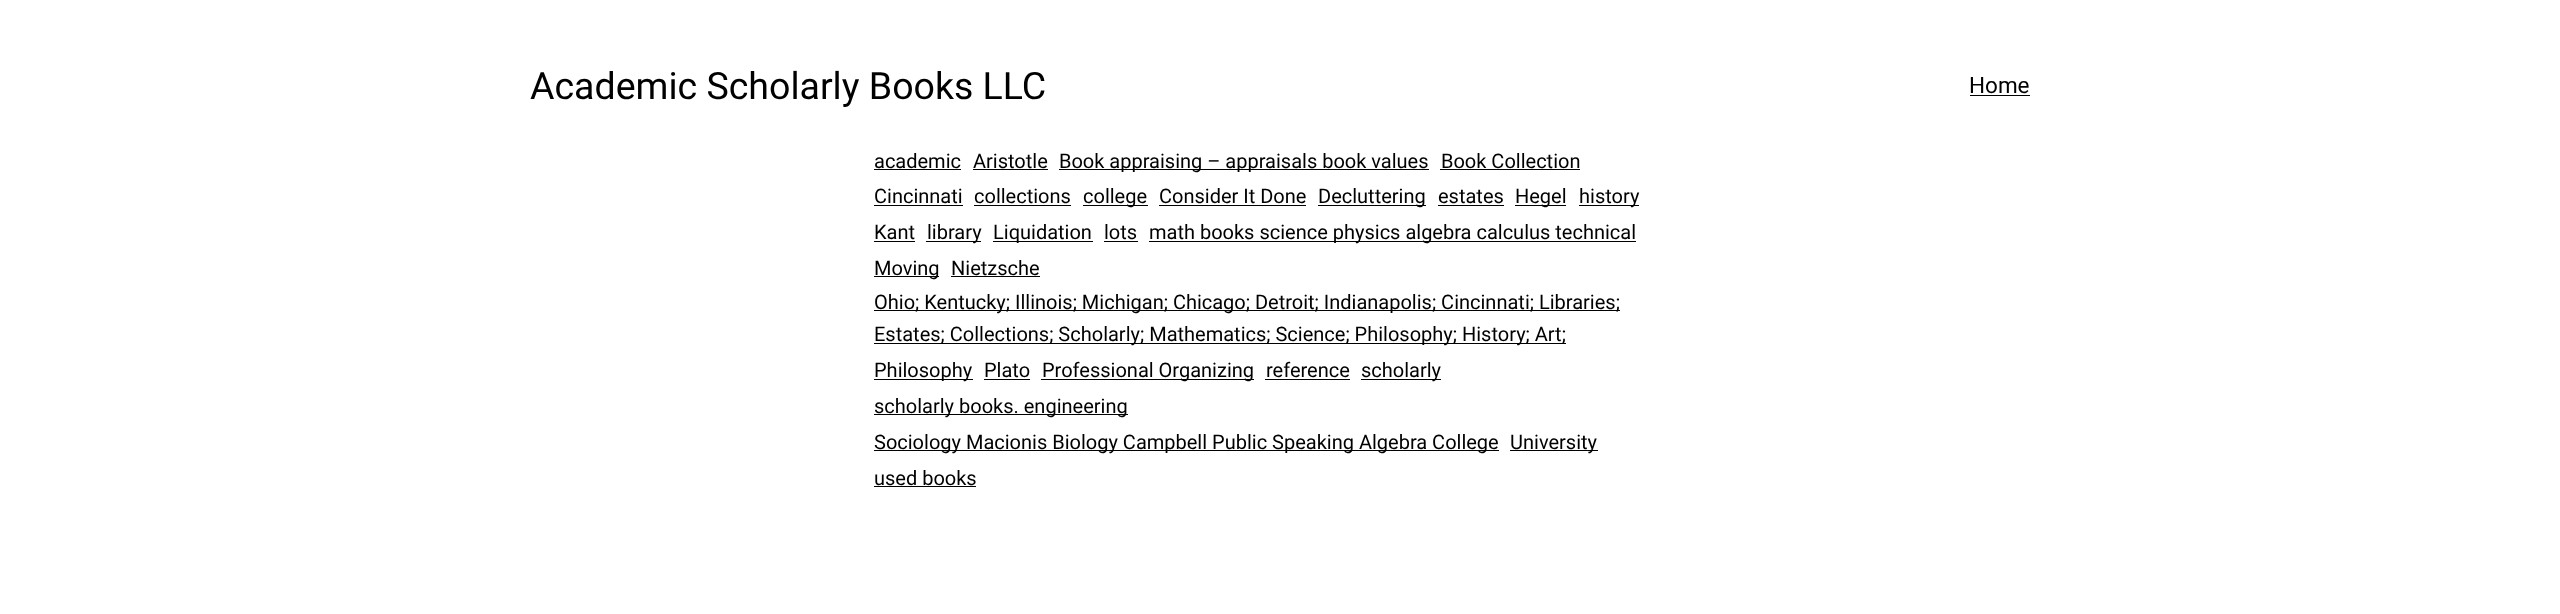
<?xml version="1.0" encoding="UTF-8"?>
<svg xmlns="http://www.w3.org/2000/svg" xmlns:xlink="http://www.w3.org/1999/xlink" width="2560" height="614">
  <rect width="100%" height="100%" fill="#ffffff" />
  <rect x="1970" y="95" width="60" height="1" fill="#000000" />
  <rect x="874" y="169" width="87" height="1" fill="#000000" />
  <rect x="973" y="169" width="75" height="1" fill="#000000" />
  <rect x="1059" y="169" width="370" height="1" fill="#000000" />
  <rect x="1440" y="169" width="140" height="1" fill="#000000" />
  <rect x="874" y="205" width="89" height="1" fill="#000000" />
  <rect x="974" y="205" width="97" height="1" fill="#000000" />
  <rect x="1083" y="205" width="65" height="1" fill="#000000" />
  <rect x="1159" y="205" width="147" height="1" fill="#000000" />
  <rect x="1318" y="205" width="108" height="1" fill="#000000" />
  <rect x="1438" y="205" width="66" height="1" fill="#000000" />
  <rect x="1515" y="205" width="51" height="1" fill="#000000" />
  <rect x="1579" y="205" width="60" height="1" fill="#000000" />
  <rect x="874" y="241" width="41" height="1" fill="#000000" />
  <rect x="926" y="241" width="55" height="1" fill="#000000" />
  <rect x="993" y="241" width="100" height="1" fill="#000000" />
  <rect x="1104" y="241" width="34" height="1" fill="#000000" />
  <rect x="1149" y="241" width="487" height="1" fill="#000000" />
  <rect x="874" y="276" width="65" height="1" fill="#000000" />
  <rect x="951" y="276" width="89" height="1" fill="#000000" />
  <rect x="874" y="310" width="746" height="1" fill="#000000" />
  <rect x="874" y="343" width="692" height="1" fill="#000000" />
  <rect x="874" y="379" width="99" height="1" fill="#000000" />
  <rect x="984" y="379" width="46" height="1" fill="#000000" />
  <rect x="1041" y="379" width="213" height="1" fill="#000000" />
  <rect x="1265" y="379" width="85" height="1" fill="#000000" />
  <rect x="1361" y="379" width="80" height="1" fill="#000000" />
  <rect x="874" y="414" width="254" height="1" fill="#000000" />
  <rect x="874" y="450" width="625" height="1" fill="#000000" />
  <rect x="1510" y="450" width="88" height="1" fill="#000000" />
  <rect x="874" y="486" width="102" height="1" fill="#000000" />
  <text x="530" y="99" style="font-family: Roboto; font-size: 37.5px; fill: #000000">Academic Scholarly Books LLC</text>
  <text x="1969" y="93" style="font-family: Roboto; font-size: 22.5px; fill: #000000">Home</text>
  <text x="874" y="168" style="font-family: Roboto; font-size: 20px; fill: #000000">academic</text>
  <text x="973" y="168" style="font-family: Roboto; font-size: 20px; fill: #000000">Aristotle</text>
  <text x="1059" y="168" style="font-family: Roboto; font-size: 20px; fill: #000000">Book appraising – appraisals book values</text>
  <text x="1441" y="168" style="font-family: Roboto; font-size: 20px; fill: #000000">Book Collection</text>
  <text x="874" y="203" style="font-family: Roboto; font-size: 20px; fill: #000000">Cincinnati</text>
  <text x="974" y="203" style="font-family: Roboto; font-size: 20px; fill: #000000">collections</text>
  <text x="1083" y="203" style="font-family: Roboto; font-size: 20px; fill: #000000">college</text>
  <text x="1159" y="203" style="font-family: Roboto; font-size: 20px; fill: #000000">Consider It Done</text>
  <text x="1318" y="203" style="font-family: Roboto; font-size: 20px; fill: #000000">Decluttering</text>
  <text x="1438" y="203" style="font-family: Roboto; font-size: 20px; fill: #000000">estates</text>
  <text x="1515" y="203" style="font-family: Roboto; font-size: 20px; fill: #000000">Hegel</text>
  <text x="1579" y="203" style="font-family: Roboto; font-size: 20px; fill: #000000">history</text>
  <text x="874" y="239" style="font-family: Roboto; font-size: 20px; fill: #000000">Kant</text>
  <text x="927" y="239" style="font-family: Roboto; font-size: 20px; fill: #000000">library</text>
  <text x="993" y="239" style="font-family: Roboto; font-size: 20px; fill: #000000">Liquidation</text>
  <text x="1104" y="239" style="font-family: Roboto; font-size: 20px; fill: #000000">lots</text>
  <text x="1149" y="239" style="font-family: Roboto; font-size: 20px; fill: #000000">math books science physics algebra calculus technical</text>
  <text x="874" y="275" style="font-family: Roboto; font-size: 20px; fill: #000000">Moving</text>
  <text x="951" y="275" style="font-family: Roboto; font-size: 20px; fill: #000000">Nietzsche</text>
  <text x="874" y="309" style="font-family: Roboto; font-size: 20px; fill: #000000">Ohio; Kentucky; Illinois; Michigan; Chicago; Detroit; Indianapolis; Cincinnati; Libraries;</text>
  <text x="874" y="341" style="font-family: Roboto; font-size: 20px; fill: #000000">Estates; Collections; Scholarly; Mathematics; Science; Philosophy; History; Art;</text>
  <text x="874" y="377" style="font-family: Roboto; font-size: 20px; fill: #000000">Philosophy</text>
  <text x="984" y="377" style="font-family: Roboto; font-size: 20px; fill: #000000">Plato</text>
  <text x="1042" y="377" style="font-family: Roboto; font-size: 20px; fill: #000000">Professional Organizing</text>
  <text x="1266" y="377" style="font-family: Roboto; font-size: 20px; fill: #000000">reference</text>
  <text x="1361" y="377" style="font-family: Roboto; font-size: 20px; fill: #000000">scholarly</text>
  <text x="874" y="413" style="font-family: Roboto; font-size: 20px; fill: #000000">scholarly books. engineering</text>
  <text x="874" y="449" style="font-family: Roboto; font-size: 20px; fill: #000000">Sociology Macionis Biology Campbell Public Speaking Algebra College</text>
  <text x="1510" y="449" style="font-family: Roboto; font-size: 20px; fill: #000000">University</text>
  <text x="874" y="485" style="font-family: Roboto; font-size: 20px; fill: #000000">used books</text>
</svg>
